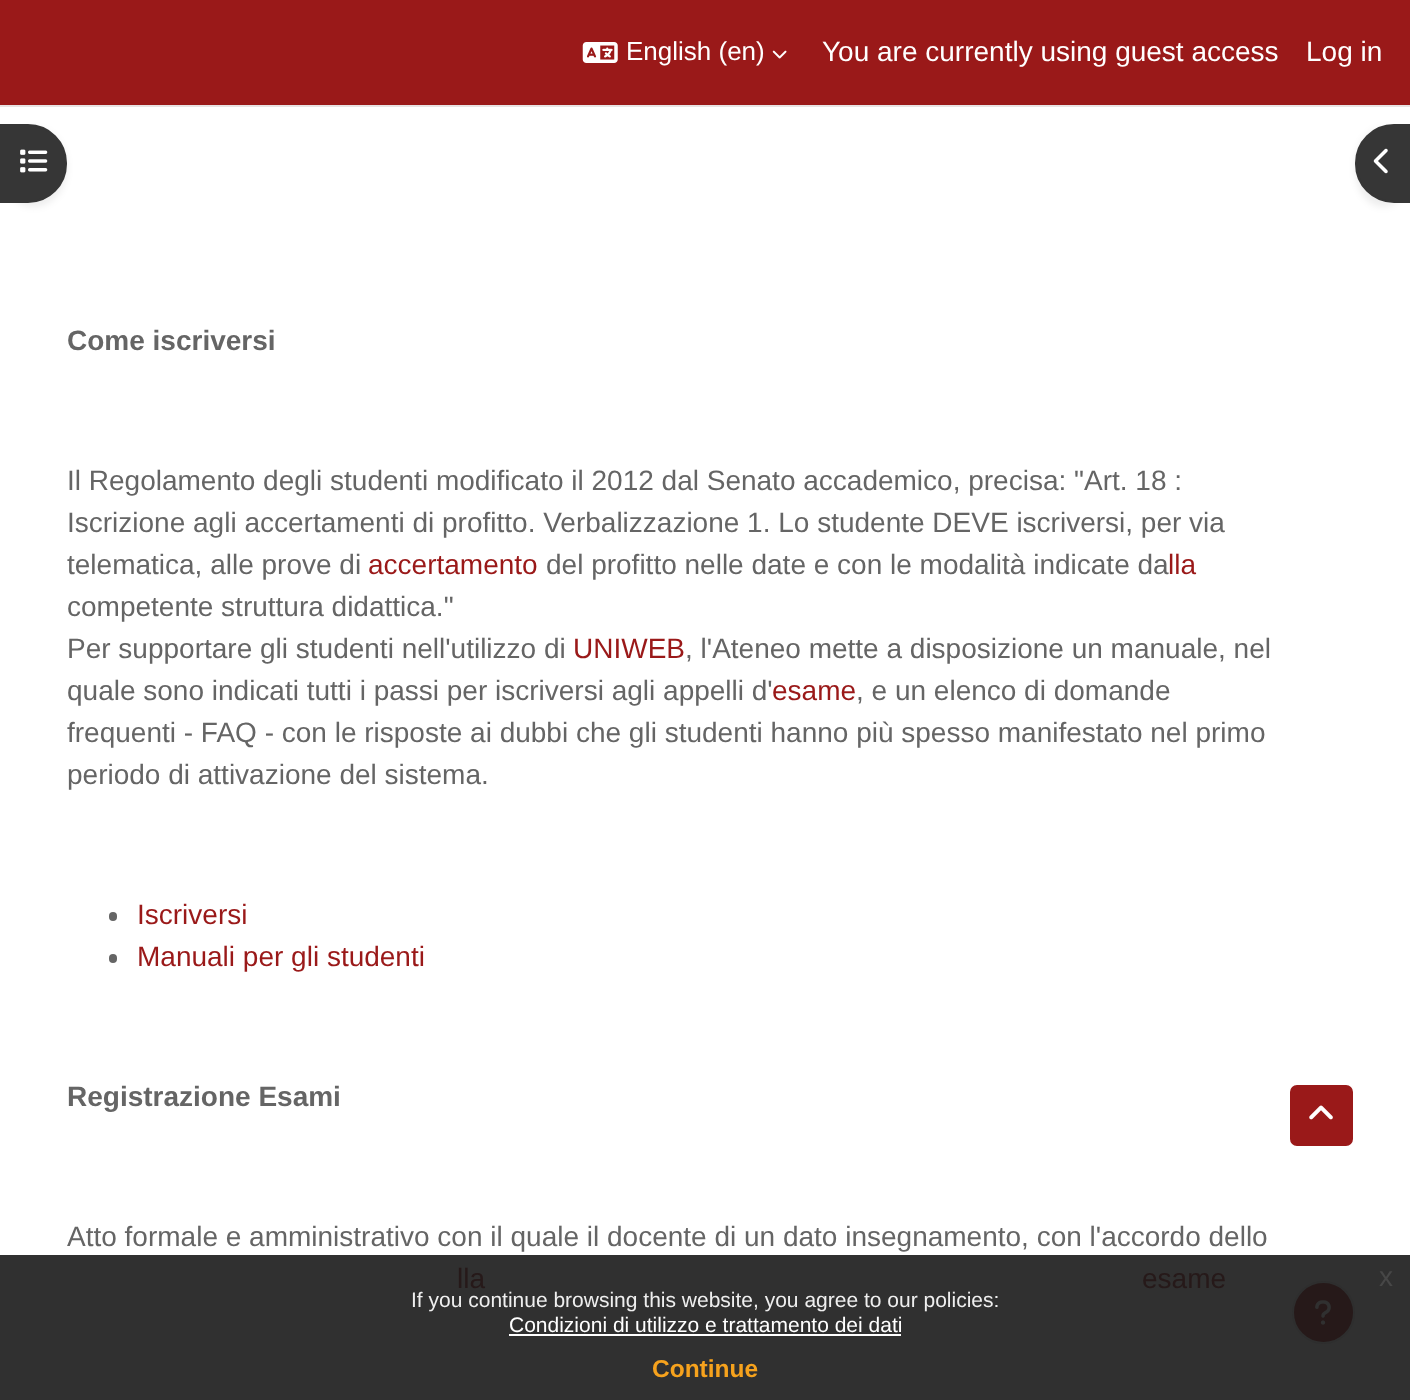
<?xml version="1.0" encoding="UTF-8"?>
<svg xmlns="http://www.w3.org/2000/svg" xmlns:xlink="http://www.w3.org/1999/xlink" width="1410" height="1400">
  <rect width="100%" height="100%" fill="#ffffff" />
  <rect y="1255" width="1410" height="145" fill="#303030" />
  <rect width="1410" height="105" fill="#9a1919" />
  <rect y="105" width="1410" height="2" fill="#e8e3e3" />
  <image x="582" y="42" width="36" height="21" xlink:href="image1.png" />
  <image x="772" y="50" width="15" height="9" xlink:href="image2.png" />
  <rect y="128" width="67" height="79" rx="39" fill="#000000" fill-opacity="0.07" filter="blur(3.5px)" />
  <path d="M 1 125 h 27 c 21 0 38 17 38 38 v 1 c 0 21 -17 38 -38 38 h -27 z" fill="#363636" stroke="#363636" stroke-width="2" />
  <image x="20" y="149" width="28" height="24" xlink:href="image3.png" />
  <rect x="1355" y="128" width="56" height="79" rx="39" fill="#000000" fill-opacity="0.07" filter="blur(3.5px)" />
  <path d="M 1394 125 h 16 v 77 h -16 c -21 0 -38 -17 -38 -38 v -1 c 0 -21 17 -38 38 -38 z" fill="#363636" stroke="#363636" stroke-width="2" />
  <image x="1373" y="148" width="15" height="26" xlink:href="image4.png" />
  <rect x="109" y="912" width="8" height="9" rx="4" fill="#656565" />
  <rect x="109" y="954" width="8" height="9" rx="4" fill="#656565" />
  <rect x="1289" y="1084" width="65" height="63" rx="8" fill="#9a1919" stroke="#ffffff" stroke-width="2" />
  <image x="1309" y="1105" width="24" height="15" xlink:href="image5.png" />
  <circle cx="1323.5" cy="1312.5" r="30.5" fill="#261919" stroke="#2e2e2e" stroke-width="2" />
  <image x="1315" y="1300" width="16" height="25" xlink:href="image6.png" />
  <rect x="509" y="1334" width="392" height="2" fill="#ffffff" />
  <text x="626" y="60" style="font-family: Liberation Sans; font-size: 26px; fill: #ffffff">English (en)</text>
  <text x="822" y="61" style="font-family: Liberation Sans; font-size: 28px; fill: #ffffff">You are currently using guest access</text>
  <text x="1306" y="61" style="font-family: Liberation Sans; font-size: 28px; fill: #ffffff">Log in</text>
  <text x="67" y="350" style="font-family: Liberation Sans; font-size: 28px; font-weight: bold; fill: #656565">Come iscriversi</text>
  <text x="67" y="490" style="font-family: Liberation Sans; font-size: 28px; fill: #656565">Il Regolamento degli studenti modificato il 2012 dal Senato accademico, precisa: "Art. 18 :</text>
  <text x="67" y="532" style="font-family: Liberation Sans; font-size: 28px; fill: #656565">Iscrizione agli accertamenti di profitto. Verbalizzazione 1. Lo studente DEVE iscriversi, per via</text>
  <text x="67" y="574" style="font-family: Liberation Sans; font-size: 28px; fill: #656565">telematica, alle prove di</text>
  <text x="368" y="574" style="font-family: Liberation Sans; font-size: 28px; fill: #9a1919">accertamento</text>
  <text x="546" y="574" style="font-family: Liberation Sans; font-size: 28px; fill: #656565">del profitto nelle date e con le modalità indicate da</text>
  <text x="1168" y="574" style="font-family: Liberation Sans; font-size: 28px; fill: #9a1919">lla</text>
  <text x="67" y="616" style="font-family: Liberation Sans; font-size: 28px; fill: #656565">competente struttura didattica."</text>
  <text x="67" y="658" style="font-family: Liberation Sans; font-size: 28px; fill: #656565">Per supportare gli studenti nell'utilizzo di</text>
  <text x="573" y="658" style="font-family: Liberation Sans; font-size: 28px; fill: #9a1919">UNIWEB</text>
  <text x="685" y="658" style="font-family: Liberation Sans; font-size: 28px; fill: #656565">, l'Ateneo mette a disposizione un manuale, nel</text>
  <text x="67" y="700" style="font-family: Liberation Sans; font-size: 28px; fill: #656565">quale sono indicati tutti i passi per iscriversi agli appelli d'</text>
  <text x="772" y="700" style="font-family: Liberation Sans; font-size: 28px; fill: #9a1919">esame</text>
  <text x="856" y="700" style="font-family: Liberation Sans; font-size: 28px; fill: #656565">, e un elenco di domande</text>
  <text x="67" y="742" style="font-family: Liberation Sans; font-size: 28px; fill: #656565">frequenti - FAQ - con le risposte ai dubbi che gli studenti hanno più spesso manifestato nel primo</text>
  <text x="67" y="784" style="font-family: Liberation Sans; font-size: 28px; fill: #656565">periodo di attivazione del sistema.</text>
  <text x="137" y="924" style="font-family: Liberation Sans; font-size: 28px; fill: #9a1919">Iscriversi</text>
  <text x="137" y="966" style="font-family: Liberation Sans; font-size: 28px; fill: #9a1919">Manuali per gli studenti</text>
  <text x="67" y="1106" style="font-family: Liberation Sans; font-size: 28px; font-weight: bold; fill: #656565">Registrazione Esami</text>
  <text x="67" y="1246" style="font-family: Liberation Sans; font-size: 28px; fill: #656565">Atto formale e amministrativo con il quale il docente di un dato insegnamento, con l'accordo dello</text>
  <text x="457" y="1288" style="font-family: Liberation Sans; font-size: 28px; fill: #261919">lla</text>
  <text x="1142" y="1288" style="font-family: Liberation Sans; font-size: 28px; fill: #261919">esame</text>
  <text x="1379" y="1286" style="font-family: Liberation Sans; font-size: 28px; fill: #474747">x</text>
  <text x="411" y="1307" style="font-family: Liberation Sans; font-size: 21px; fill: #efefef">If you continue browsing this website, you agree to our policies:</text>
  <text x="509" y="1332" style="font-family: Liberation Sans; font-size: 21px; fill: #ffffff">Condizioni di utilizzo e trattamento dei dati</text>
  <text x="652" y="1377" style="font-family: Liberation Sans; font-size: 24.5px; font-weight: bold; fill: #f6a21d">Continue</text>
</svg>
